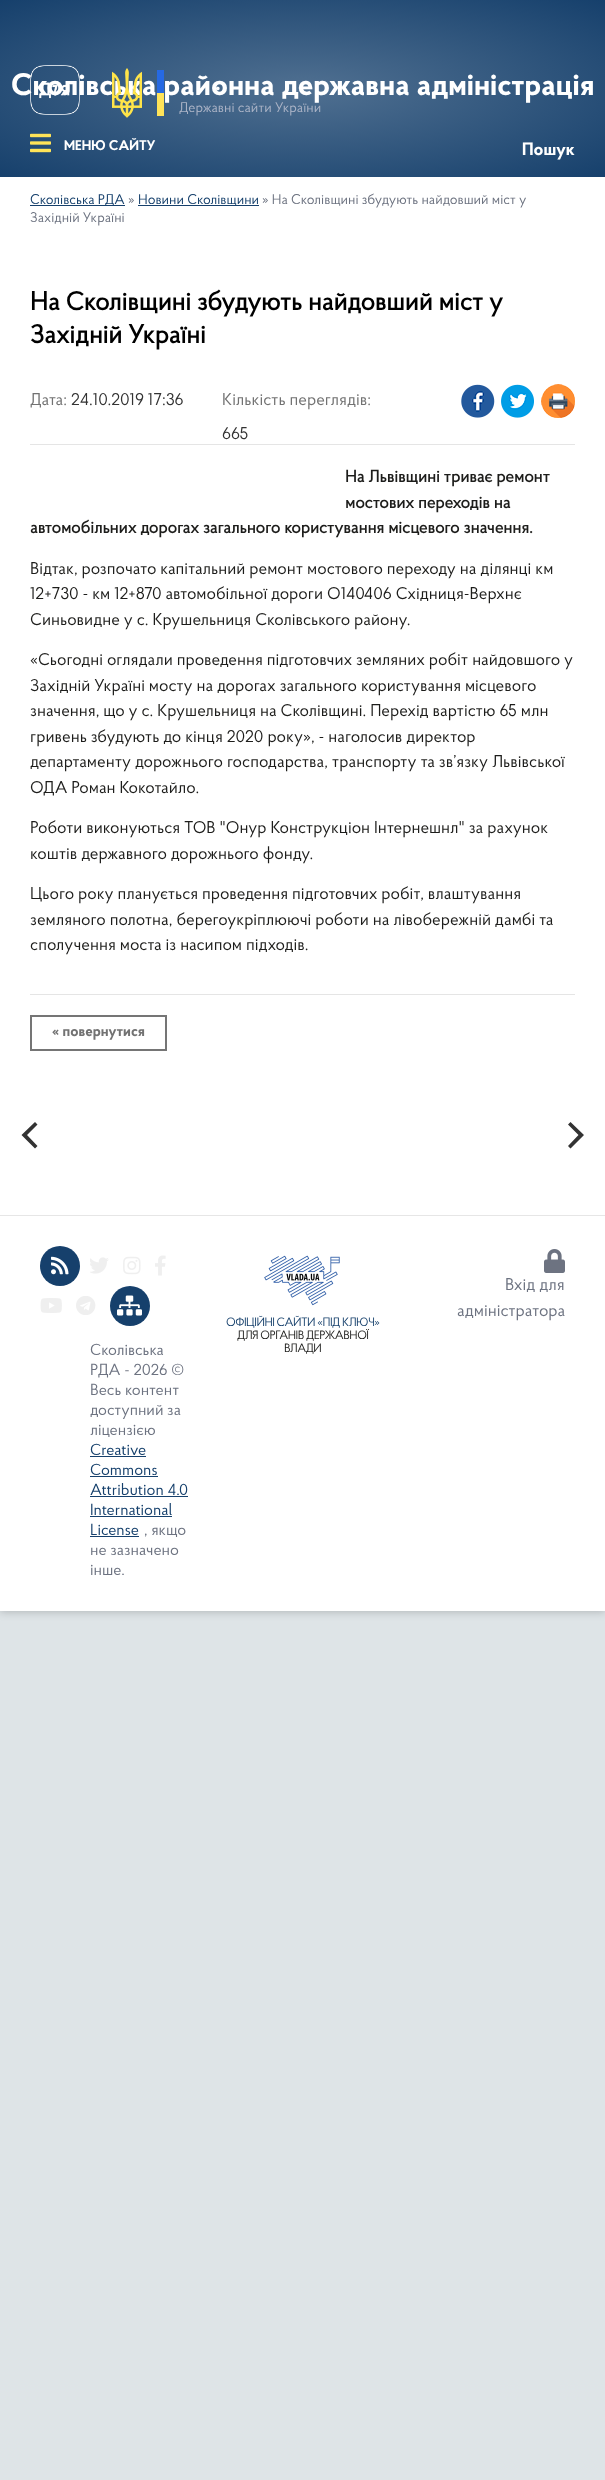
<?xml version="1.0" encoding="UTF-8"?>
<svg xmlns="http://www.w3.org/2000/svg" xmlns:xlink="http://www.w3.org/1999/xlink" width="605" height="2480">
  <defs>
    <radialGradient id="g1" gradientUnits="userSpaceOnUse" cx="0" cy="0" r="1" gradientTransform="matrix(428 0 0 125 303 89)"><stop offset="0" stop-color="#507091" /><stop offset="1" stop-color="#16406c" /></radialGradient>
  </defs>
  <rect width="100%" height="100%" fill="#dee4e7" />
  <rect y="1" width="605" height="1611" fill="#000000" fill-opacity="0.2" filter="blur(4px)" />
  <rect y="177" width="605" height="1434" fill="#ffffff" />
  <rect width="605" height="177" fill="url(#g1)" />
  <image x="30" y="133" width="21" height="20" xlink:href="image3.png" />
  <rect x="30" y="205" width="95" height="1" fill="#16406c" />
  <rect x="138" y="205" width="121" height="1" fill="#16406c" />
  <image x="461" y="384" width="34" height="34" xlink:href="image4.png" />
  <image x="501" y="384" width="33" height="34" xlink:href="image5.png" />
  <image x="541" y="384" width="34" height="34" xlink:href="image6.png" />
  <rect x="30" y="444" width="545" height="1" fill="#e5e5e5" />
  <rect x="30" y="994" width="545" height="1" fill="#e5e5e5" />
  <rect x="31" y="1016" width="135" height="34" fill="none" stroke="#757575" stroke-width="2" />
  <path d="M 21.5 1135 l 13.5 13.5 l 2.5 -2.5 l -10.5 -11 l 10.5 -10.5 l -2.5 -2.5 z" fill="#333333" />
  <path d="M 584 1135 l -13.5 -13 l -2.5 2.5 l 10.5 10.5 l -10.5 11 l 2.5 2.5 z" fill="#333333" />
  <rect y="1215" width="605" height="1" fill="#e6e6e6" />
  <image x="544" y="1249" width="21" height="24" xlink:href="image7.png" />
  <image x="264" y="1255" width="76" height="51" xlink:href="image8.png" />
  <circle cx="60" cy="1266" r="20" fill="#16406c" />
  <image x="51" y="1256" width="18" height="19" xlink:href="image9.png" />
  <image x="90" y="1257" width="19" height="17" xlink:href="image10.png" />
  <image x="123" y="1256" width="18" height="19" xlink:href="image11.png" />
  <image x="155" y="1255" width="11" height="21" xlink:href="image12.png" />
  <image x="40" y="1298" width="22" height="15" xlink:href="image13.png" />
  <image x="76" y="1296" width="20" height="19" xlink:href="image14.png" />
  <circle cx="130" cy="1306" r="20" fill="#16406c" />
  <image x="117" y="1295" width="25" height="21" xlink:href="image15.png" />
  <rect x="90" y="1456" width="56" height="1" fill="#16406c" />
  <rect x="90" y="1476" width="68" height="1" fill="#16406c" />
  <rect x="90" y="1496" width="98" height="1" fill="#16406c" />
  <rect x="90" y="1516" width="82" height="1" fill="#16406c" />
  <rect x="90" y="1536" width="49" height="1" fill="#16406c" />
  <text x="11" y="95" style="font-family: 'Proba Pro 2'; font-size: 31px; font-weight: bold; fill: #ffffff">Сколівська районна державна адміністрація</text>
  <image x="30" y="65" width="50" height="50" xlink:href="image1.png" />
  <image x="112" y="68" width="30" height="50" xlink:href="image2.png" />
  <rect x="157" y="70" width="7" height="23" fill="#2669e3" />
  <rect x="157" y="93" width="7" height="23" fill="#ffe358" />
  <text x="215" y="90" style="font-family: 'Proba Pro 2'; font-size: 24px; font-weight: bold; fill: #ffffff">.</text>
  <text x="179" y="112" style="font-family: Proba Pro; font-size: 14px; fill: #aab3c6">Державні сайти України</text>
  <text x="64" y="150" style="font-family: 'Proba Pro 2'; font-size: 14px; font-weight: bold; fill: #ffffff">МЕНЮ САЙТУ</text>
  <text x="522" y="155" style="font-family: 'Proba Pro 2'; font-size: 18px; font-weight: bold; fill: #ffffff">Пошук</text>
  <text x="30" y="204" style="font-family: Proba Pro; font-size: 14px; fill: #16406c">Сколівська РДА</text>
  <text x="128" y="204" style="font-family: Proba Pro; font-size: 14px; fill: #6d7381">»</text>
  <text x="138" y="204" style="font-family: Proba Pro; font-size: 14px; fill: #16406c">Новини Сколівщини</text>
  <text x="262" y="204" style="font-family: Proba Pro; font-size: 14px; fill: #6d7381">» На Сколівщині збудують найдовший міст у</text>
  <text x="30" y="222" style="font-family: Proba Pro; font-size: 14px; fill: #6d7381">Західній Україні</text>
  <text x="30" y="310" style="font-family: Proba Pro; font-size: 26px; font-weight: bold; fill: #000000">На Сколівщині збудують найдовший міст у</text>
  <text x="30" y="343" style="font-family: Proba Pro; font-size: 26px; font-weight: bold; fill: #000000">Західній Україні</text>
  <text x="30" y="405" style="font-family: Proba Pro; font-size: 17px; fill: #727272">Дата:</text>
  <text x="71" y="405" style="font-family: Proba Pro; font-size: 17px; fill: #333333">24.10.2019 17:36</text>
  <text x="222" y="405" style="font-family: Proba Pro; font-size: 17px; fill: #727272">Кількість переглядів:</text>
  <text x="222" y="439" style="font-family: Proba Pro; font-size: 17px; fill: #333333">665</text>
  <text x="345" y="482" style="font-family: Proba Pro; font-size: 17px; font-weight: bold; fill: #1d1d1b">На Львівщині триває ремонт</text>
  <text x="345" y="508" style="font-family: Proba Pro; font-size: 17px; font-weight: bold; fill: #1d1d1b">мостових переходів на</text>
  <text x="30" y="533" style="font-family: Proba Pro; font-size: 17px; font-weight: bold; fill: #1d1d1b">автомобільних дорогах загального користування місцевого значення.</text>
  <text x="30" y="574" style="font-family: Proba Pro; font-size: 17px; fill: #1d1d1b">Відтак, розпочато капітальний ремонт мостового переходу на ділянці км</text>
  <text x="30" y="599" style="font-family: Proba Pro; font-size: 17px; fill: #1d1d1b">12+730 - км 12+870 автомобільної дороги О140406 Східниця-Верхнє</text>
  <text x="30" y="625" style="font-family: Proba Pro; font-size: 17px; fill: #1d1d1b">Синьовидне у с. Крушельниця Сколівського району.</text>
  <text x="30" y="665" style="font-family: Proba Pro; font-size: 17px; fill: #1d1d1b">«Сьогодні оглядали проведення підготовчих земляних робіт найдовшого у</text>
  <text x="30" y="691" style="font-family: Proba Pro; font-size: 17px; fill: #1d1d1b">Західній Україні мосту на дорогах загального користування місцевого</text>
  <text x="30" y="716" style="font-family: Proba Pro; font-size: 17px; fill: #1d1d1b">значення, що у с. Крушельниця на Сколівщині. Перехід вартістю 65 млн</text>
  <text x="30" y="742" style="font-family: Proba Pro; font-size: 17px; fill: #1d1d1b">гривень збудують до кінця 2020 року», - наголосив директор</text>
  <text x="30" y="767" style="font-family: Proba Pro; font-size: 17px; fill: #1d1d1b">департаменту дорожнього господарства, транспорту та зв’язку Львівської</text>
  <text x="30" y="793" style="font-family: Proba Pro; font-size: 17px; fill: #1d1d1b">ОДА Роман Кокотайло.</text>
  <text x="30" y="833" style="font-family: Proba Pro; font-size: 17px; fill: #1d1d1b">Роботи виконуються ТОВ "Онур Конструкціон Інтернешнл" за рахунок</text>
  <text x="30" y="859" style="font-family: Proba Pro; font-size: 17px; fill: #1d1d1b">коштів державного дорожнього фонду.</text>
  <text x="30" y="899" style="font-family: Proba Pro; font-size: 17px; fill: #1d1d1b">Цього року планується проведення підготовчих робіт, влаштування</text>
  <text x="30" y="925" style="font-family: Proba Pro; font-size: 17px; fill: #1d1d1b">земляного полотна, берегоукріплюючі роботи на лівобережній дамбі та</text>
  <text x="30" y="950" style="font-family: Proba Pro; font-size: 17px; fill: #1d1d1b">сполучення моста із насипом підходів.</text>
  <text x="52" y="1036" style="font-family: 'Proba Pro 2'; font-size: 15px; font-weight: bold; fill: #727272">« повернутися</text>
  <text x="505" y="1290" style="font-family: Proba Pro; font-size: 17px; fill: #6d7381">Вхід для</text>
  <text x="457" y="1316" style="font-family: Proba Pro; font-size: 17px; fill: #6d7381">адміністратора</text>
  <text x="226" y="1326" style="font-family: Proba Pro; font-size: 12px; letter-spacing: -0.5px; fill: #16406c">ОФІЦІЙНІ САЙТИ «ПІД КЛЮЧ»</text>
  <text x="237" y="1339" style="font-family: Proba Pro; font-size: 12px; letter-spacing: -0.5px; fill: #1d1d1b">ДЛЯ ОРГАНІВ ДЕРЖАВНОЇ</text>
  <text x="284" y="1352" style="font-family: Proba Pro; font-size: 12px; letter-spacing: -0.5px; fill: #1d1d1b">ВЛАДИ</text>
  <text x="90" y="1355" style="font-family: Proba Pro; font-size: 16px; fill: #6d7381">Сколівська</text>
  <text x="90" y="1375" style="font-family: Proba Pro; font-size: 16px; fill: #6d7381">РДА - 2026 ©</text>
  <text x="90" y="1395" style="font-family: Proba Pro; font-size: 16px; fill: #6d7381">Весь контент</text>
  <text x="90" y="1415" style="font-family: Proba Pro; font-size: 16px; fill: #6d7381">доступний за</text>
  <text x="90" y="1435" style="font-family: Proba Pro; font-size: 16px; fill: #6d7381">ліцензією</text>
  <text x="90" y="1455" style="font-family: Proba Pro; font-size: 16px; fill: #16406c">Creative</text>
  <text x="90" y="1475" style="font-family: Proba Pro; font-size: 16px; fill: #16406c">Commons</text>
  <text x="90" y="1495" style="font-family: Proba Pro; font-size: 16px; fill: #16406c">Attribution 4.0</text>
  <text x="90" y="1515" style="font-family: Proba Pro; font-size: 16px; fill: #16406c">International</text>
  <text x="90" y="1535" style="font-family: Proba Pro; font-size: 16px; fill: #16406c">License</text>
  <text x="144" y="1535" style="font-family: Proba Pro; font-size: 16px; fill: #6d7381">, якщо</text>
  <text x="90" y="1555" style="font-family: Proba Pro; font-size: 16px; fill: #6d7381">не зазначено</text>
  <text x="90" y="1575" style="font-family: Proba Pro; font-size: 16px; fill: #6d7381">інше.</text>
</svg>
